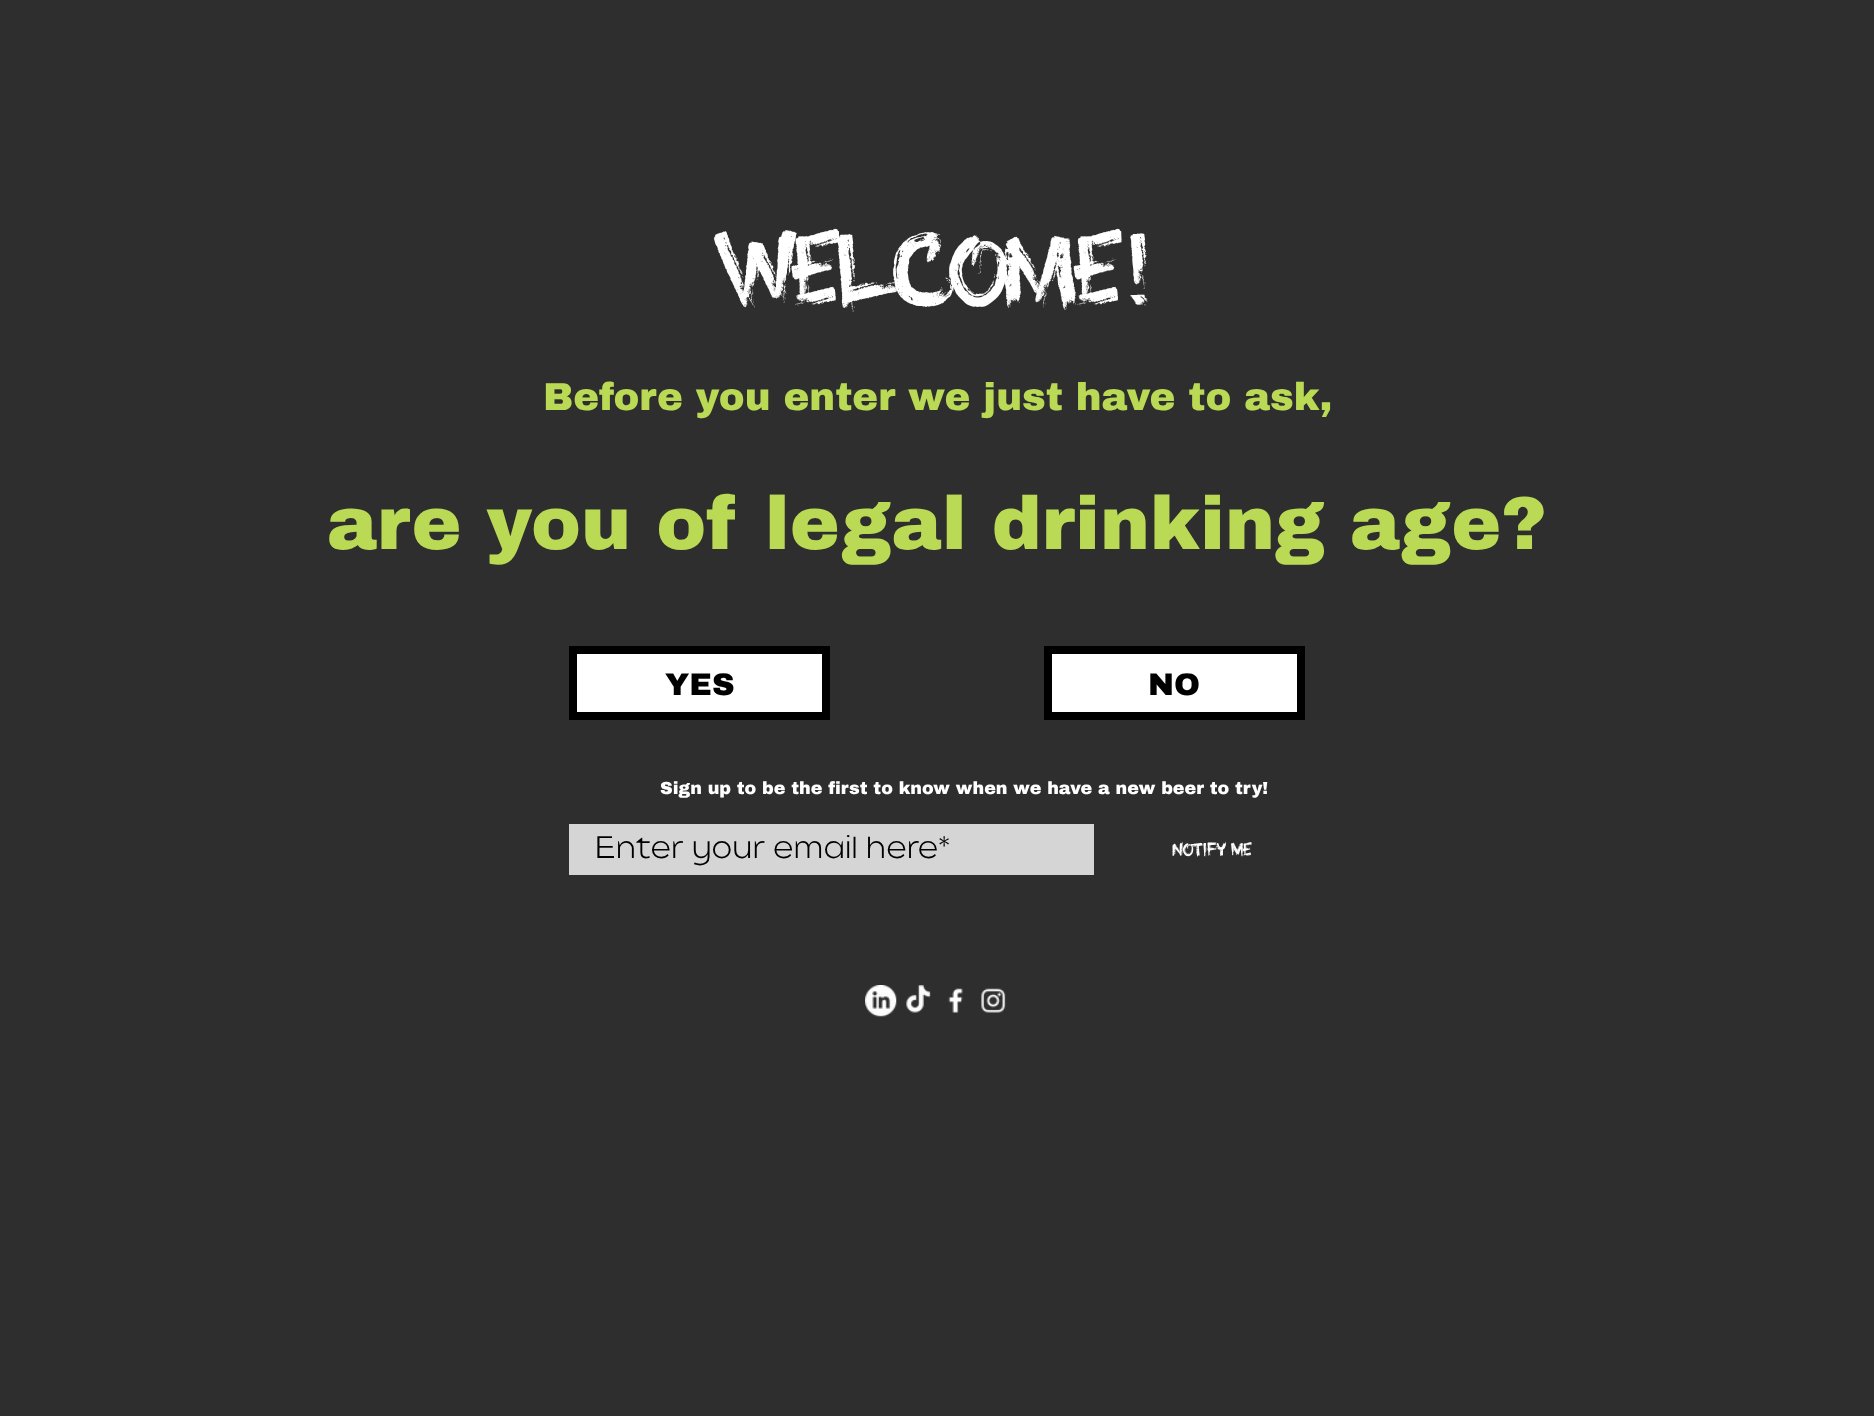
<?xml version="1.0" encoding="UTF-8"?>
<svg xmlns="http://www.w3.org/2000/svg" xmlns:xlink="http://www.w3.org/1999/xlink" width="1874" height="1416">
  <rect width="100%" height="100%" fill="#2f2e2e" />
  <rect x="573" y="650" width="253" height="66" fill="#ffffff" stroke="#000000" stroke-width="8" />
  <rect x="1048" y="650" width="253" height="66" fill="#ffffff" stroke="#000000" stroke-width="8" />
  <rect x="569" y="824" width="525" height="51" fill="#d5d5d5" />
  <image x="865" y="985" width="32" height="32" xlink:href="image1.png" />
  <image x="906" y="985" width="25" height="28" xlink:href="image2.png" />
  <image x="948" y="988" width="15" height="25" xlink:href="image3.png" />
  <image x="981" y="988" width="25" height="25" xlink:href="image4.png" />
  <text x="717" y="306" style="font-family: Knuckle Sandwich; font-size: 103.75px; fill: #ffffff">Welcome!</text>
  <text x="543" y="410" style="font-family: Archivo Black; font-size: 38.75px; font-weight: 900; fill: #bada55">Before you enter we just have to ask,</text>
  <text x="327" y="549" style="font-family: Archivo Black; font-size: 75px; font-weight: 900; fill: #bada55">are you of legal drinking age?</text>
  <text x="665" y="695" style="font-family: Archivo Black; font-size: 31.25px; font-weight: 900; fill: #000000">YES</text>
  <text x="1148" y="695" style="font-family: Archivo Black; font-size: 31.25px; font-weight: 900; fill: #000000">NO</text>
  <text x="660" y="794" style="font-family: Archivo Black; font-size: 17.5px; font-weight: 900; fill: #ffffff">Sign up to be the first to know when we have a new beer to try!</text>
  <text x="595" y="858" style="font-family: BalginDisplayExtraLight; font-size: 31.25px; font-weight: 200; fill: #000000">Enter your email here*</text>
  <text x="1172" y="856" style="font-family: Knuckle Sandwich; font-size: 18.75px; fill: #ffffff">Notify Me</text>
</svg>
